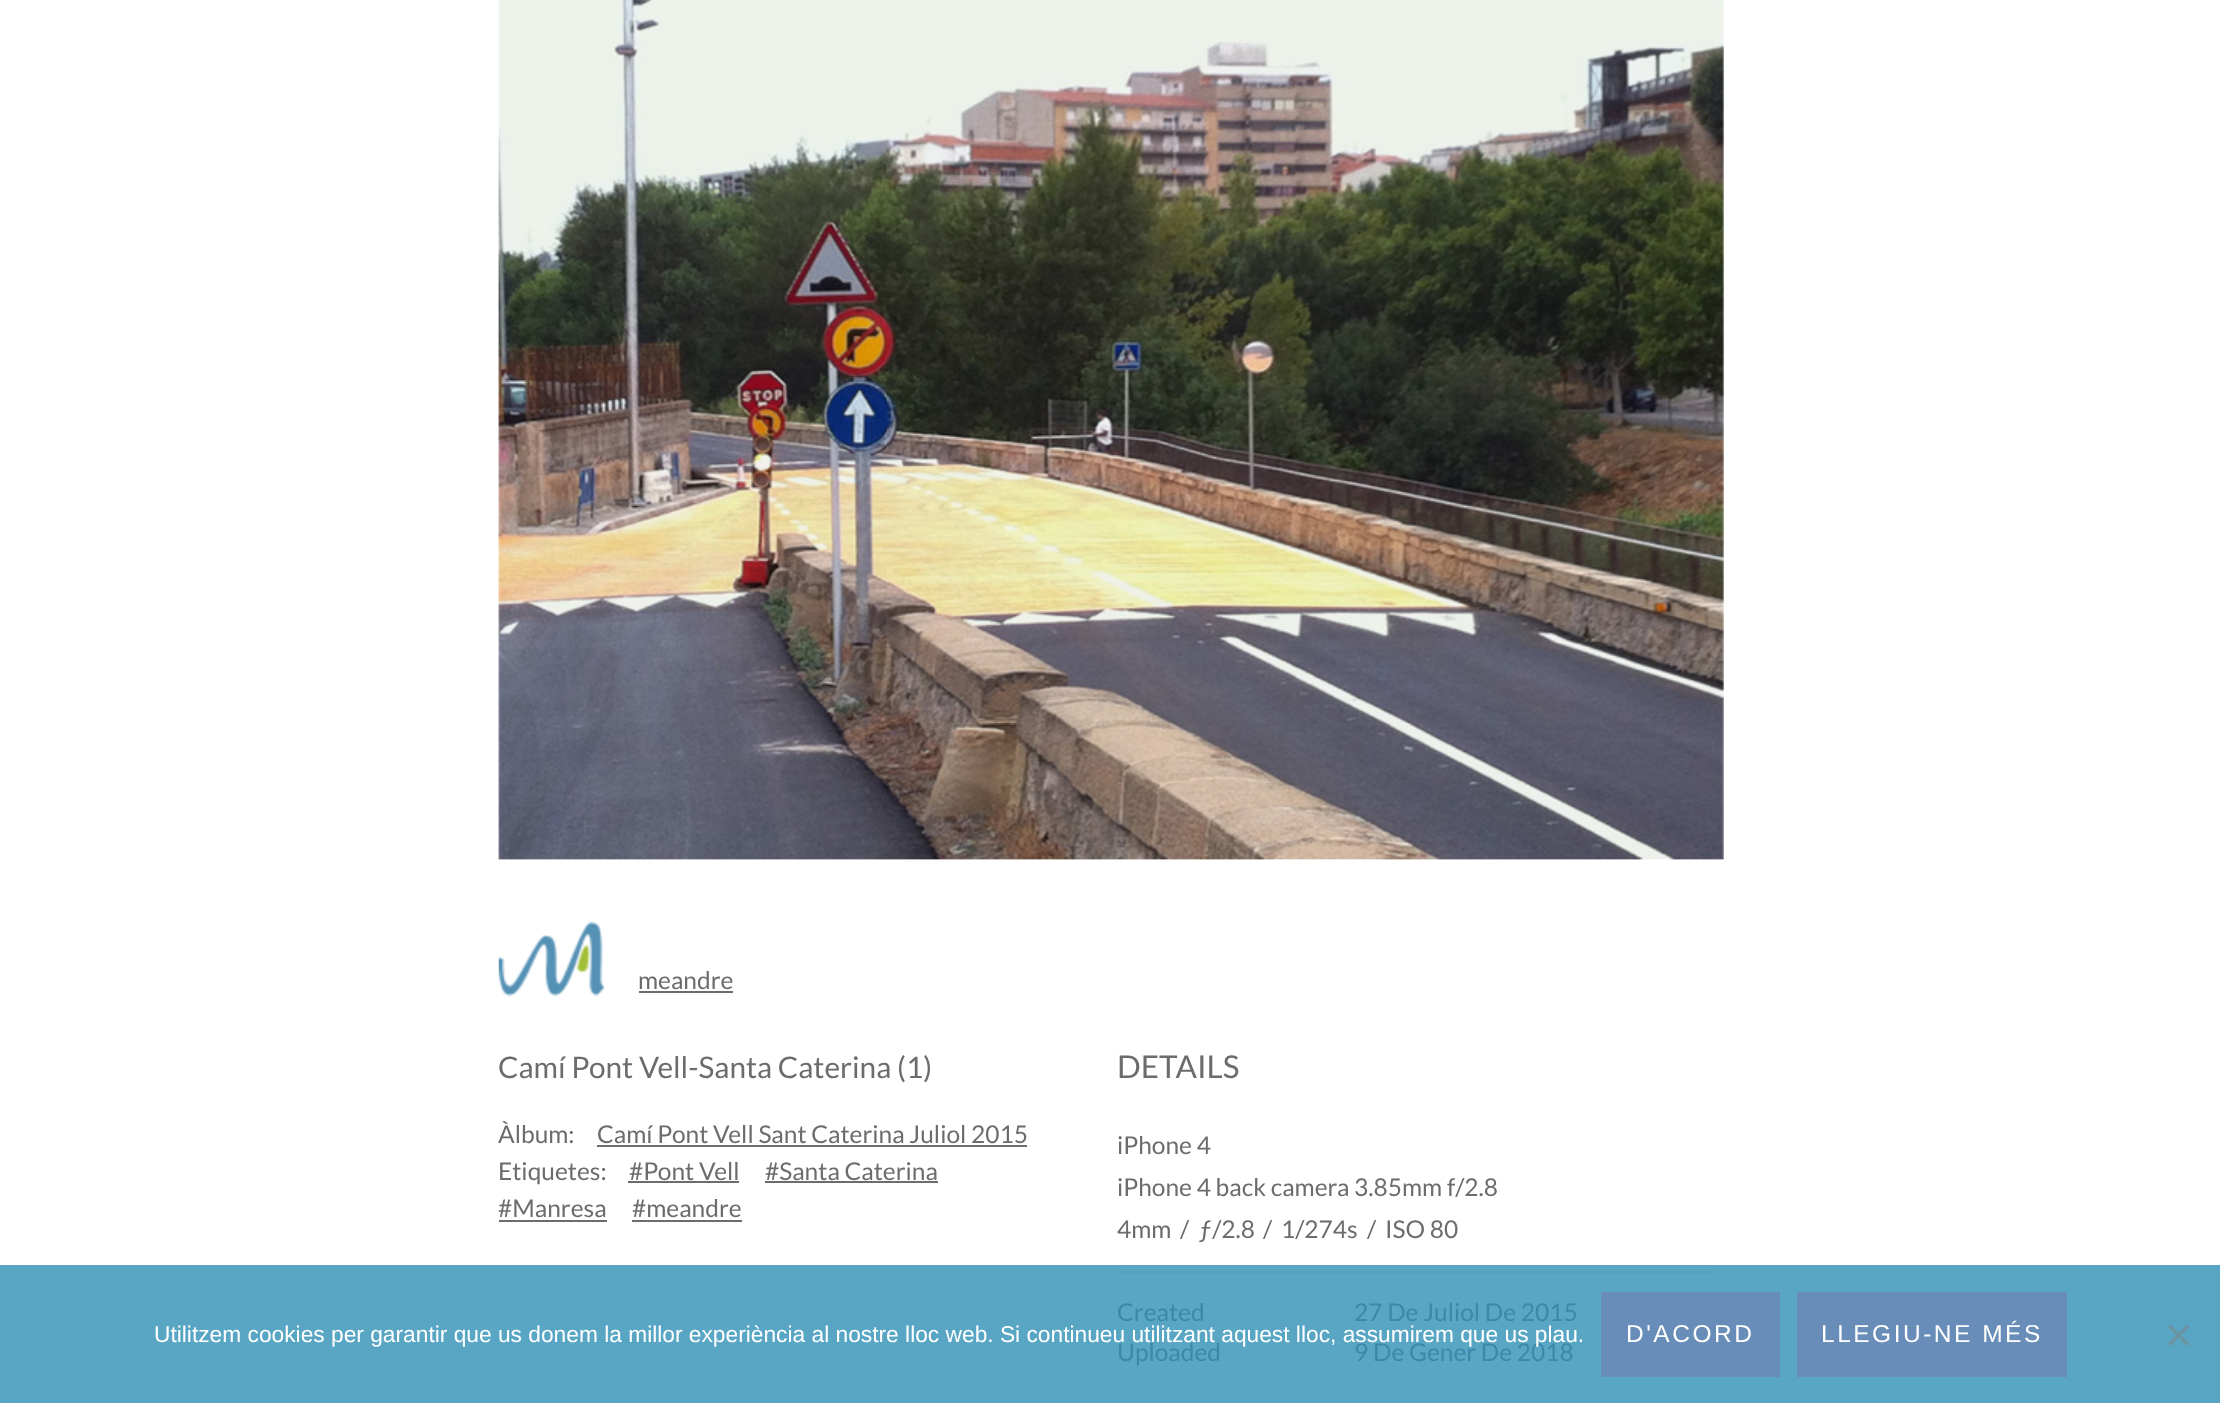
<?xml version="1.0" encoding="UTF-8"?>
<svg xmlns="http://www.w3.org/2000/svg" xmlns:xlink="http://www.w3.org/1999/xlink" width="2220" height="1403">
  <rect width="100%" height="100%" fill="#ffffff" />
  <rect y="1265" width="2220" height="138" fill="#58a6c4" />
  <image x="498" y="0" width="1226" height="860" xlink:href="image1.png" />
  <image x="498" y="921" width="106" height="76" xlink:href="image2.png" />
  <rect x="639" y="991" width="94" height="2" fill="#6a6c6e" />
  <rect x="597" y="1145" width="430" height="2" fill="#6a6c6e" />
  <rect x="628" y="1181" width="111" height="2" fill="#6a6c6e" />
  <rect x="765" y="1181" width="173" height="2" fill="#6a6c6e" />
  <rect x="499" y="1220" width="108" height="2" fill="#6a6c6e" />
  <rect x="632" y="1220" width="110" height="2" fill="#6a6c6e" />
  <rect x="1117" y="1271" width="595" height="2" fill="#53a1bf" />
  <rect x="1601" y="1292" width="179" height="85" fill="#678db8" />
  <rect x="1797" y="1292" width="270" height="85" fill="#678db8" />
  <path d="M 2187 1324.5 l 2.5 2.5 l -19 19 l -2.5 -2.5 z" fill="#6c93a2" />
  <path d="M 2168 1327 l 2.5 -2.5 l 19 19 l -2.5 2.5 z" fill="#6c93a2" />
  <text x="638" y="989" style="font-family: Lato; font-size: 24.5px; fill: #6a6c6e">meandre</text>
  <text x="498" y="1078" style="font-family: Lato; font-size: 29.75px; fill: #6a6c6e">Camí Pont Vell-Santa Caterina (1)</text>
  <text x="498" y="1143" style="font-family: Lato; font-size: 24.5px; fill: #6a6c6e">Àlbum:</text>
  <text x="597" y="1143" style="font-family: Lato; font-size: 24.5px; fill: #6a6c6e">Camí Pont Vell Sant Caterina Juliol 2015</text>
  <text x="629" y="1180" style="font-family: Lato; font-size: 24.5px; fill: #6a6c6e">#Pont Vell</text>
  <text x="765" y="1180" style="font-family: Lato; font-size: 24.5px; fill: #6a6c6e">#Santa Caterina</text>
  <text x="498" y="1217" style="font-family: Lato; font-size: 24.5px; fill: #6a6c6e">#Manresa</text>
  <text x="632" y="1217" style="font-family: Lato; font-size: 24.5px; fill: #6a6c6e">#meandre</text>
  <text x="498" y="1180" style="font-family: Lato; font-size: 24.5px; fill: #6a6c6e">Etiquetes:</text>
  <text x="1117" y="1078" style="font-family: Lato; font-size: 31.5px; fill: #6a6c6e">DETAILS</text>
  <text x="1117" y="1154" style="font-family: Lato; font-size: 24.5px; fill: #6a6c6e">iPhone 4</text>
  <text x="1117" y="1196" style="font-family: Lato; font-size: 24.5px; fill: #6a6c6e">iPhone 4 back camera 3.85mm f/2.8</text>
  <text x="1117" y="1238" style="font-family: Lato; font-size: 24.5px; fill: #6a6c6e">4mm</text>
  <text x="1180" y="1238" style="font-family: Lato; font-size: 24.5px; fill: #6a6c6e">/</text>
  <text x="1198" y="1238" style="font-family: Lato; font-size: 24.5px; fill: #6a6c6e">ƒ/2.8</text>
  <text x="1263" y="1238" style="font-family: Lato; font-size: 24.5px; fill: #6a6c6e">/</text>
  <text x="1281" y="1238" style="font-family: Lato; font-size: 24.5px; fill: #6a6c6e">1/274s</text>
  <text x="1367" y="1238" style="font-family: Lato; font-size: 24.5px; fill: #6a6c6e">/</text>
  <text x="1385" y="1238" style="font-family: Lato; font-size: 24.5px; fill: #6a6c6e">ISO 80</text>
  <text x="1117" y="1321" style="font-family: Lato; font-size: 24.5px; fill: #3a89a7">Created</text>
  <text x="1354" y="1321" style="font-family: Lato; font-size: 24.5px; fill: #3a89a7">27 De Juliol De 2015</text>
  <text x="1117" y="1361" style="font-family: Lato; font-size: 24.5px; fill: #3a89a7">Uploaded</text>
  <text x="1354" y="1361" style="font-family: Lato; font-size: 24.5px; fill: #3a89a7">9 De Gener De 2018</text>
  <text x="154" y="1342" style="font-family: Liberation Sans; font-size: 22.75px; fill: #ffffff">Utilitzem cookies per garantir que us donem la millor experiència al nostre lloc web. Si continueu utilitzant aquest lloc, assumirem que us plau.</text>
  <text x="1626" y="1342" style="font-family: Liberation Sans; font-size: 24.5px; letter-spacing: 2.5px; fill: #ffffff">D'ACORD</text>
  <text x="1821" y="1342" style="font-family: Liberation Sans; font-size: 24.5px; letter-spacing: 2.5px; fill: #ffffff">LLEGIU-NE MÉS</text>
</svg>
